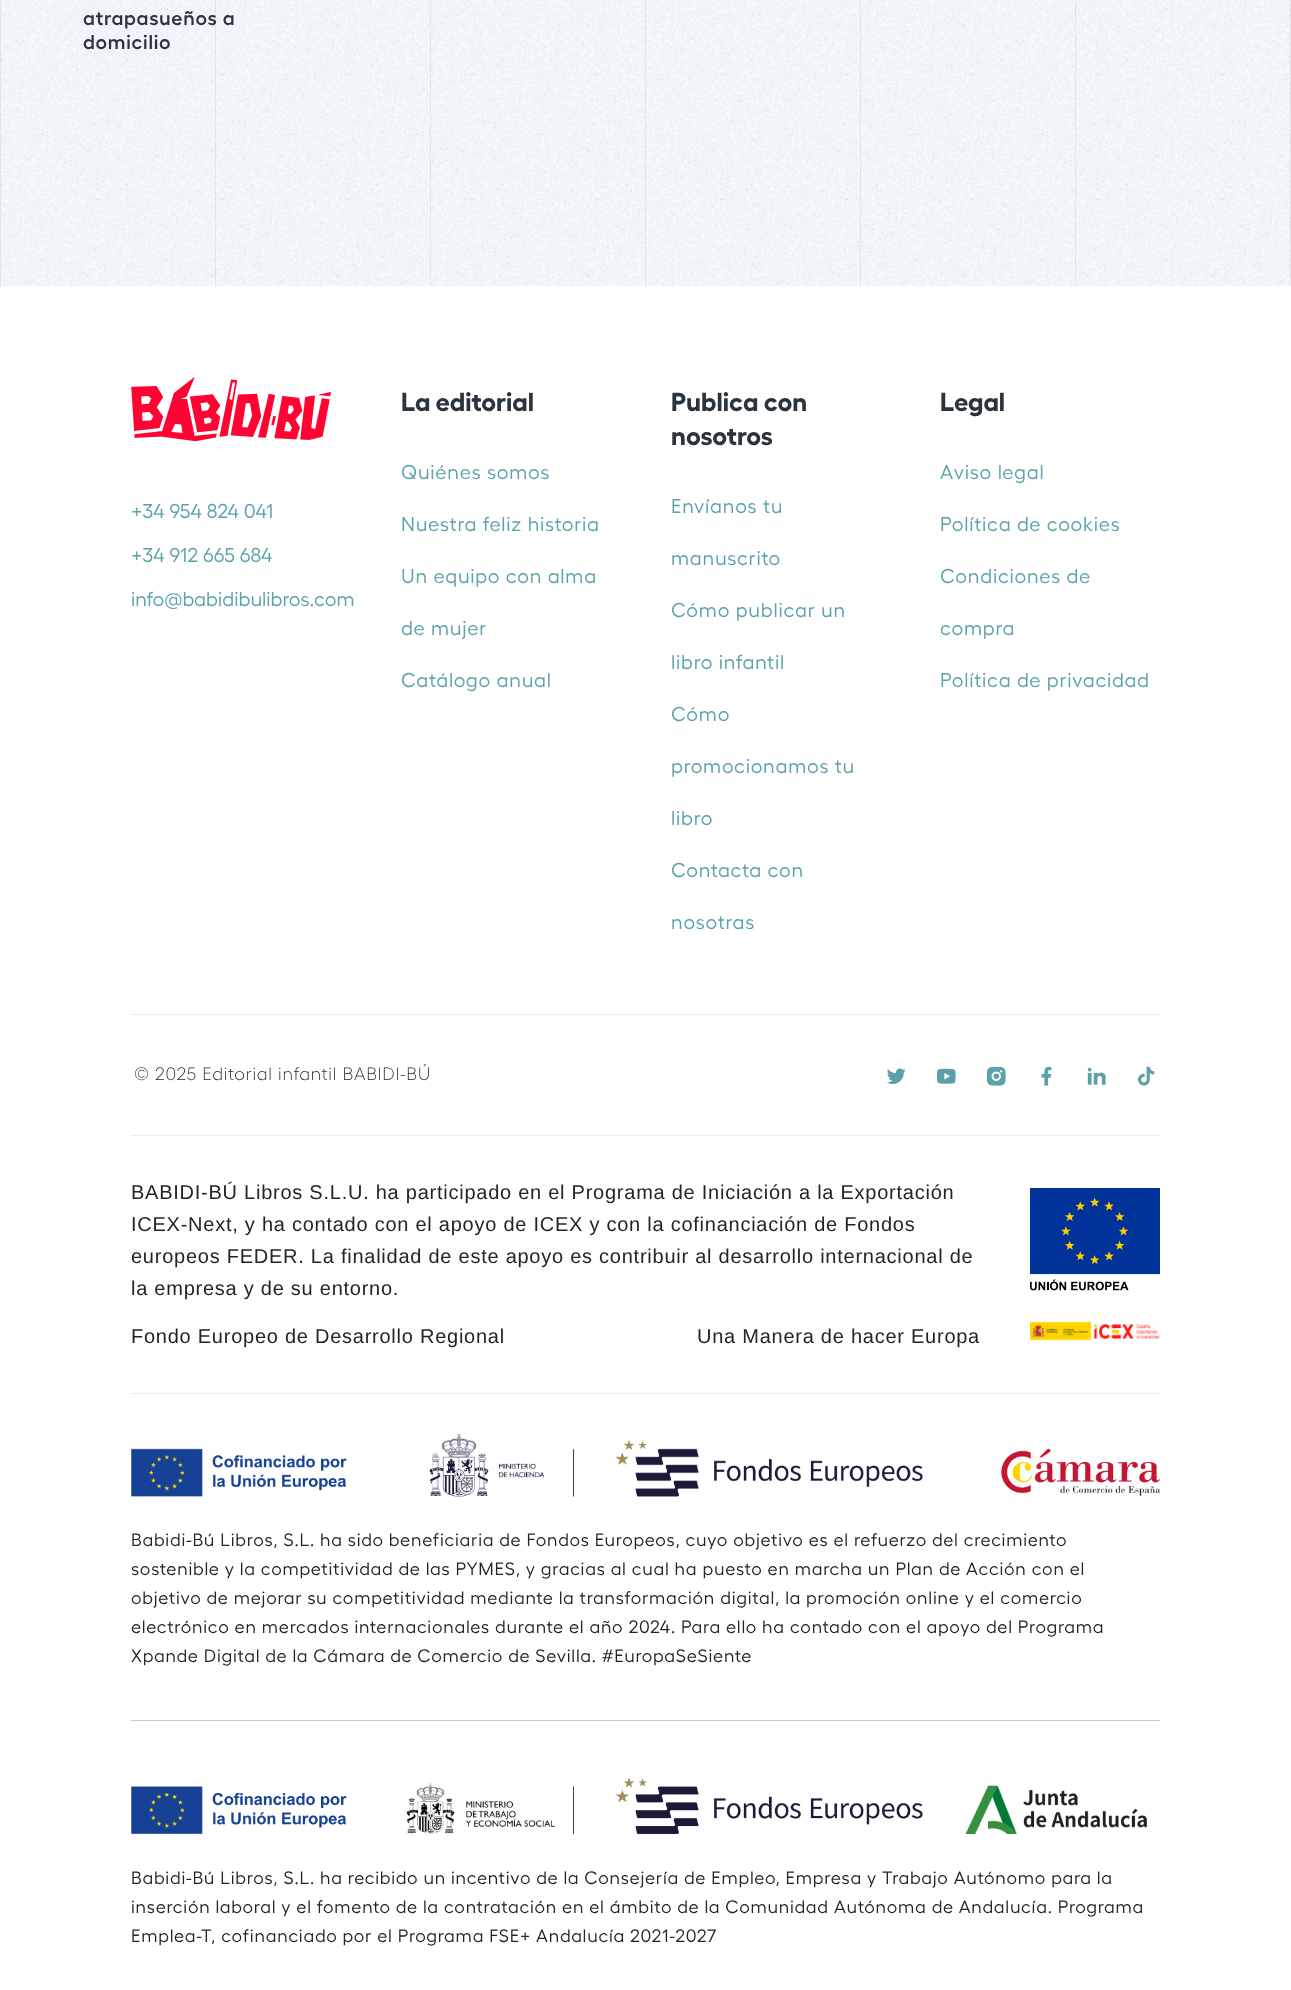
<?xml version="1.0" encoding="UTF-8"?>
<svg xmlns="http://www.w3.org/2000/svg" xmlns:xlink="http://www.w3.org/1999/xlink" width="1291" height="1990">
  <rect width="100%" height="100%" fill="#f4f7fc" />
  <rect width="1" height="286" fill="#e4e7ec" />
  <rect x="215" width="1" height="286" fill="#e4e7ec" />
  <rect x="430" width="1" height="286" fill="#e4e7ec" />
  <rect x="645" width="1" height="286" fill="#e4e7ec" />
  <rect x="860" width="1" height="286" fill="#e4e7ec" />
  <rect x="1075" width="1" height="286" fill="#e4e7ec" />
  <rect x="1290" width="1" height="286" fill="#e4e7ec" />
  <image x="0" y="0" width="1291" height="286" xlink:href="image1.png" />
  <rect y="286" width="1291" height="1704" fill="#ffffff" />
  <image x="131" y="377" width="200" height="65" xlink:href="image2.png" />
  <rect x="131" y="1014" width="1029" height="1" fill="#ededed" />
  <image x="886" y="1068" width="20" height="16" xlink:href="image3.png" />
  <image x="936" y="1068" width="20" height="16" xlink:href="image4.png" />
  <image x="986" y="1066" width="20" height="20" xlink:href="image5.png" />
  <image x="1041" y="1066" width="11" height="20" xlink:href="image6.png" />
  <image x="1087" y="1067" width="19" height="18" xlink:href="image7.png" />
  <image x="1138" y="1066" width="17" height="20" xlink:href="image8.png" />
  <rect x="131" y="1135" width="1029" height="1" fill="#ededed" />
  <image x="1030" y="1188" width="130" height="103" xlink:href="image9.png" />
  <image x="1030" y="1321" width="130" height="20" xlink:href="image10.png" />
  <rect x="131" y="1393" width="1029" height="1" fill="#ededed" />
  <image x="131" y="1434" width="1029" height="63" xlink:href="image11.png" />
  <rect x="131" y="1720" width="1029" height="1" fill="#c8c9ca" />
  <image x="131" y="1777" width="1017" height="57" xlink:href="image12.png" />
  <text x="83" y="25" style="font-family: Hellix; font-size: 20px; font-weight: 600; letter-spacing: 0.75px; fill: #29343e">atrapasueños a</text>
  <text x="83" y="49" style="font-family: Hellix; font-size: 20px; font-weight: 600; letter-spacing: 0.75px; fill: #29343e">domicilio</text>
  <text x="131" y="518" style="font-family: Hellix; font-size: 20px; fill: #5ba2a8">+34 954 824 041</text>
  <text x="131" y="562" style="font-family: Hellix; font-size: 20px; fill: #5ba2a8">+34 912 665 684</text>
  <text x="131" y="606" style="font-family: Hellix; font-size: 20px; fill: #5ba2a8">info@babidibulibros.com</text>
  <text x="401" y="411" style="font-family: Hellix; font-size: 26px; font-weight: bold; fill: #29343e">La editorial</text>
  <text x="401" y="479" style="font-family: Hellix; font-size: 20px; letter-spacing: 0.75px; fill: #5ba2a8">Quiénes somos</text>
  <text x="401" y="531" style="font-family: Hellix; font-size: 20px; letter-spacing: 0.75px; fill: #5ba2a8">Nuestra feliz historia</text>
  <text x="401" y="583" style="font-family: Hellix; font-size: 20px; letter-spacing: 0.75px; fill: #5ba2a8">Un equipo con alma</text>
  <text x="401" y="635" style="font-family: Hellix; font-size: 20px; letter-spacing: 0.75px; fill: #5ba2a8">de mujer</text>
  <text x="401" y="687" style="font-family: Hellix; font-size: 20px; letter-spacing: 0.75px; fill: #5ba2a8">Catálogo anual</text>
  <text x="671" y="411" style="font-family: Hellix; font-size: 26px; font-weight: bold; fill: #29343e">Publica con</text>
  <text x="671" y="445" style="font-family: Hellix; font-size: 26px; font-weight: bold; fill: #29343e">nosotros</text>
  <text x="671" y="513" style="font-family: Hellix; font-size: 20px; letter-spacing: 0.75px; fill: #5ba2a8">Envíanos tu</text>
  <text x="671" y="565" style="font-family: Hellix; font-size: 20px; letter-spacing: 0.75px; fill: #5ba2a8">manuscrito</text>
  <text x="671" y="617" style="font-family: Hellix; font-size: 20px; letter-spacing: 0.75px; fill: #5ba2a8">Cómo publicar un</text>
  <text x="671" y="669" style="font-family: Hellix; font-size: 20px; letter-spacing: 0.75px; fill: #5ba2a8">libro infantil</text>
  <text x="671" y="721" style="font-family: Hellix; font-size: 20px; letter-spacing: 0.75px; fill: #5ba2a8">Cómo</text>
  <text x="671" y="773" style="font-family: Hellix; font-size: 20px; letter-spacing: 0.75px; fill: #5ba2a8">promocionamos tu</text>
  <text x="671" y="825" style="font-family: Hellix; font-size: 20px; letter-spacing: 0.75px; fill: #5ba2a8">libro</text>
  <text x="671" y="877" style="font-family: Hellix; font-size: 20px; letter-spacing: 0.75px; fill: #5ba2a8">Contacta con</text>
  <text x="671" y="929" style="font-family: Hellix; font-size: 20px; letter-spacing: 0.75px; fill: #5ba2a8">nosotras</text>
  <text x="940" y="411" style="font-family: Hellix; font-size: 26px; font-weight: bold; fill: #29343e">Legal</text>
  <text x="940" y="479" style="font-family: Hellix; font-size: 20px; letter-spacing: 0.75px; fill: #5ba2a8">Aviso legal</text>
  <text x="940" y="531" style="font-family: Hellix; font-size: 20px; letter-spacing: 0.75px; fill: #5ba2a8">Política de cookies</text>
  <text x="940" y="583" style="font-family: Hellix; font-size: 20px; letter-spacing: 0.75px; fill: #5ba2a8">Condiciones de</text>
  <text x="940" y="635" style="font-family: Hellix; font-size: 20px; letter-spacing: 0.75px; fill: #5ba2a8">compra</text>
  <text x="940" y="687" style="font-family: Hellix; font-size: 20px; letter-spacing: 0.75px; fill: #5ba2a8">Política de privacidad</text>
  <text x="134" y="1080" style="font-family: Hellix; font-size: 18px; font-weight: 300; letter-spacing: 0.75px; fill: #212529">© 2025 Editorial infantil BABIDI-BÚ</text>
  <text x="131" y="1199" style="font-family: Liberation Sans; font-size: 20px; letter-spacing: 0.75px; fill: #212529">BABIDI-BÚ Libros S.L.U. ha participado en el Programa de Iniciación a la Exportación</text>
  <text x="131" y="1231" style="font-family: Liberation Sans; font-size: 20px; letter-spacing: 0.75px; fill: #212529">ICEX-Next, y ha contado con el apoyo de ICEX y con la cofinanciación de Fondos</text>
  <text x="131" y="1263" style="font-family: Liberation Sans; font-size: 20px; letter-spacing: 0.75px; fill: #212529">europeos FEDER. La finalidad de este apoyo es contribuir al desarrollo internacional de</text>
  <text x="131" y="1295" style="font-family: Liberation Sans; font-size: 20px; letter-spacing: 0.75px; fill: #212529">la empresa y de su entorno.</text>
  <text x="131" y="1343" style="font-family: Liberation Sans; font-size: 20px; letter-spacing: 0.75px; fill: #212529">Fondo Europeo de Desarrollo Regional</text>
  <text x="697" y="1343" style="font-family: Liberation Sans; font-size: 20px; letter-spacing: 0.75px; fill: #212529">Una Manera de hacer Europa</text>
  <text x="131" y="1546" style="font-family: Hellix; font-size: 18px; letter-spacing: 0.75px; fill: #212529">Babidi-Bú Libros, S.L. ha sido beneficiaria de Fondos Europeos, cuyo objetivo es el refuerzo del crecimiento</text>
  <text x="131" y="1575" style="font-family: Hellix; font-size: 18px; letter-spacing: 0.75px; fill: #212529">sostenible y la competitividad de las PYMES, y gracias al cual ha puesto en marcha un Plan de Acción con el</text>
  <text x="131" y="1604" style="font-family: Hellix; font-size: 18px; letter-spacing: 0.75px; fill: #212529">objetivo de mejorar su competitividad mediante la transformación digital, la promoción online y el comercio</text>
  <text x="131" y="1633" style="font-family: Hellix; font-size: 18px; letter-spacing: 0.75px; fill: #212529">electrónico en mercados internacionales durante el año 2024. Para ello ha contado con el apoyo del Programa</text>
  <text x="131" y="1662" style="font-family: Hellix; font-size: 18px; letter-spacing: 0.75px; fill: #212529">Xpande Digital de la Cámara de Comercio de Sevilla. #EuropaSeSiente</text>
  <text x="131" y="1884" style="font-family: Hellix; font-size: 18px; letter-spacing: 0.75px; fill: #212529">Babidi-Bú Libros, S.L. ha recibido un incentivo de la Consejería de Empleo, Empresa y Trabajo Autónomo para la</text>
  <text x="131" y="1913" style="font-family: Hellix; font-size: 18px; letter-spacing: 0.75px; fill: #212529">inserción laboral y el fomento de la contratación en el ámbito de la Comunidad Autónoma de Andalucía. Programa</text>
  <text x="131" y="1942" style="font-family: Hellix; font-size: 18px; letter-spacing: 0.75px; fill: #212529">Emplea-T, cofinanciado por el Programa FSE+ Andalucía 2021-2027</text>
</svg>
